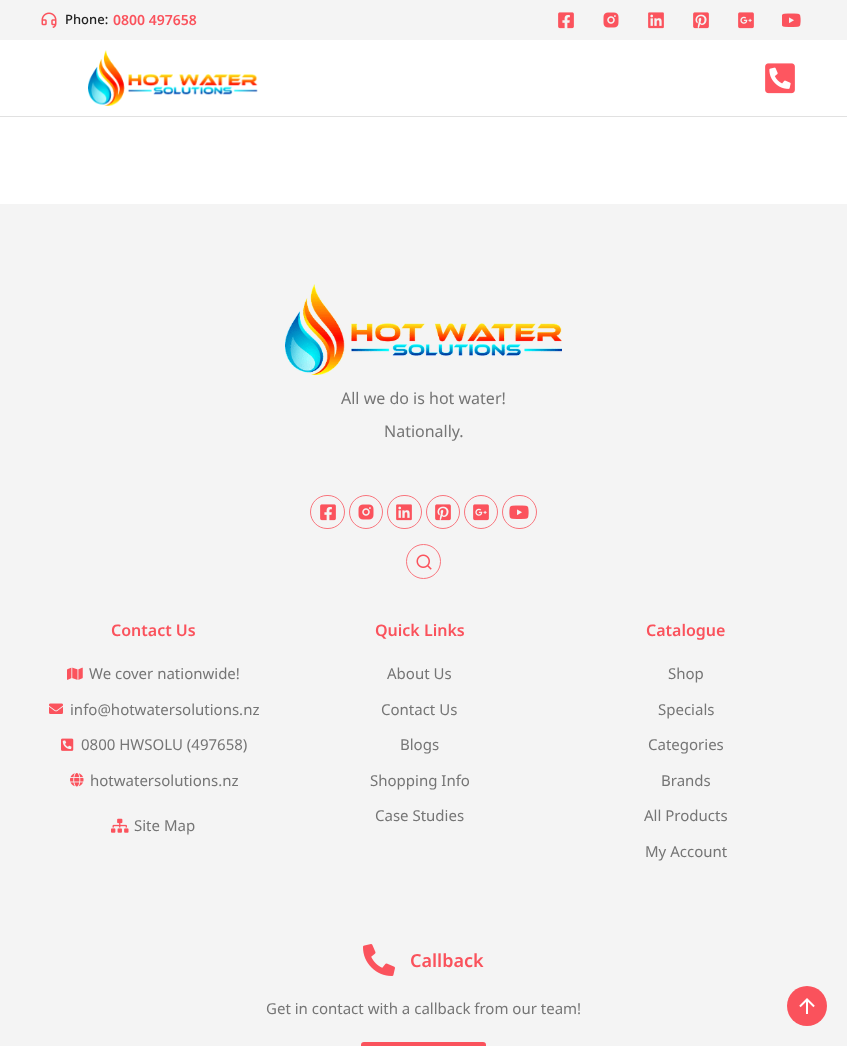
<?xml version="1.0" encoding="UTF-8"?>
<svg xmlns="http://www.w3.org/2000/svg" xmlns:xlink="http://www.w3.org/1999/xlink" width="847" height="1046">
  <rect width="100%" height="100%" fill="#ffffff" />
  <rect y="116" width="847" height="1" fill="#e1e1e1" />
  <rect width="847" height="40" fill="#f4f4f4" />
  <image x="41" y="12" width="16" height="16" xlink:href="image1.png" />
  <image x="558" y="12" width="16" height="17" xlink:href="image2.png" />
  <image x="603" y="12" width="16" height="16" xlink:href="image3.png" />
  <image x="648" y="12" width="16" height="17" xlink:href="image4.png" />
  <image x="693" y="12" width="16" height="17" xlink:href="image5.png" />
  <image x="738" y="12" width="16" height="17" xlink:href="image6.png" />
  <image x="782" y="13" width="19" height="14" xlink:href="image7.png" />
  <image x="88" y="50" width="170" height="56" xlink:href="image8.png" />
  <image x="765" y="63" width="30" height="31" xlink:href="image9.png" />
  <rect y="204" width="847" height="842" fill="#f4f4f4" />
  <image x="285" y="284" width="277" height="91" xlink:href="image10.png" />
  <rect x="310.5" y="495.5" width="34" height="33" rx="16.5" fill="none" stroke="#f9757d" />
  <image x="320" y="504" width="16" height="17" xlink:href="image2.png" />
  <circle cx="366" cy="512" r="16.5" fill="none" stroke="#f9757d" />
  <image x="358" y="504" width="16" height="16" xlink:href="image3.png" />
  <rect x="387.5" y="495.5" width="34" height="33" rx="16.5" fill="none" stroke="#f9757d" />
  <image x="396" y="504" width="16" height="17" xlink:href="image4.png" />
  <circle cx="443" cy="512" r="16.5" fill="none" stroke="#f9757d" />
  <image x="435" y="504" width="16" height="17" xlink:href="image5.png" />
  <circle cx="481" cy="512" r="16.5" fill="none" stroke="#f9757d" />
  <image x="473" y="504" width="16" height="17" xlink:href="image6.png" />
  <rect x="502.5" y="495.5" width="34" height="33" rx="16.5" fill="none" stroke="#f9757d" />
  <image x="509" y="505" width="20" height="14" xlink:href="image11.png" />
  <circle cx="423.5" cy="561.5" r="17" fill="none" stroke="#f9757d" />
  <image x="416" y="554" width="16" height="16" xlink:href="image12.png" />
  <image x="67" y="667" width="16" height="13" xlink:href="image13.png" />
  <image x="49" y="703" width="14" height="11" xlink:href="image14.png" />
  <image x="61" y="738" width="13" height="13" xlink:href="image15.png" />
  <image x="70" y="773" width="14" height="14" xlink:href="image16.png" />
  <image x="111" y="818" width="18" height="15" xlink:href="image17.png" />
  <image x="363" y="944" width="32" height="32" xlink:href="image18.png" />
  <rect x="361" y="1042" width="125" height="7" rx="3" fill="#fa525c" />
  <circle cx="807" cy="1006" r="20" fill="#fa525c" />
  <image x="799" y="998" width="16" height="16" xlink:href="image19.png" />
  <text x="65" y="24" style="font-family: Noto Sans; font-size: 13px; font-weight: 500; fill: #212121">Phone:</text>
  <text x="113" y="25" style="font-family: Noto Sans; font-size: 14px; font-weight: 600; fill: #fa525c">0800 497658</text>
  <text x="341" y="404" style="font-family: Noto Sans; font-size: 16px; fill: #757575">All we do is hot water!</text>
  <text x="384" y="437" style="font-family: Noto Sans; font-size: 16px; fill: #757575">Nationally.</text>
  <text x="111" y="636" style="font-family: Noto Sans; font-size: 16px; font-weight: 600; fill: #fa525c">Contact Us</text>
  <text x="89" y="679" style="font-family: Noto Sans; font-size: 15px; fill: #757575">We cover nationwide!</text>
  <text x="70" y="715" style="font-family: Noto Sans; font-size: 15px; fill: #757575">info@hotwatersolutions.nz</text>
  <text x="81" y="750" style="font-family: Noto Sans; font-size: 15px; fill: #757575">0800 HWSOLU (497658)</text>
  <text x="90" y="786" style="font-family: Noto Sans; font-size: 15px; fill: #757575">hotwatersolutions.nz</text>
  <text x="134" y="831" style="font-family: Noto Sans; font-size: 15px; fill: #757575">Site Map</text>
  <text x="375" y="636" style="font-family: Noto Sans; font-size: 16px; font-weight: 600; fill: #fa525c">Quick Links</text>
  <text x="387" y="679" style="font-family: Noto Sans; font-size: 15px; fill: #757575">About Us</text>
  <text x="381" y="715" style="font-family: Noto Sans; font-size: 15px; fill: #757575">Contact Us</text>
  <text x="400" y="750" style="font-family: Noto Sans; font-size: 15px; fill: #757575">Blogs</text>
  <text x="370" y="786" style="font-family: Noto Sans; font-size: 15px; fill: #757575">Shopping Info</text>
  <text x="375" y="821" style="font-family: Noto Sans; font-size: 15px; fill: #757575">Case Studies</text>
  <text x="646" y="636" style="font-family: Noto Sans; font-size: 16px; font-weight: 600; fill: #fa525c">Catalogue</text>
  <text x="668" y="679" style="font-family: Noto Sans; font-size: 15px; fill: #757575">Shop</text>
  <text x="658" y="715" style="font-family: Noto Sans; font-size: 15px; fill: #757575">Specials</text>
  <text x="648" y="750" style="font-family: Noto Sans; font-size: 15px; fill: #757575">Categories</text>
  <text x="661" y="786" style="font-family: Noto Sans; font-size: 15px; fill: #757575">Brands</text>
  <text x="644" y="821" style="font-family: Noto Sans; font-size: 15px; fill: #757575">All Products</text>
  <text x="645" y="857" style="font-family: Noto Sans; font-size: 15px; fill: #757575">My Account</text>
  <text x="410" y="967" style="font-family: Noto Sans; font-size: 18px; font-weight: 600; fill: #fa525c">Callback</text>
  <text x="266" y="1014" style="font-family: Noto Sans; font-size: 15px; fill: #757575">Get in contact with a callback from our team!</text>
</svg>
